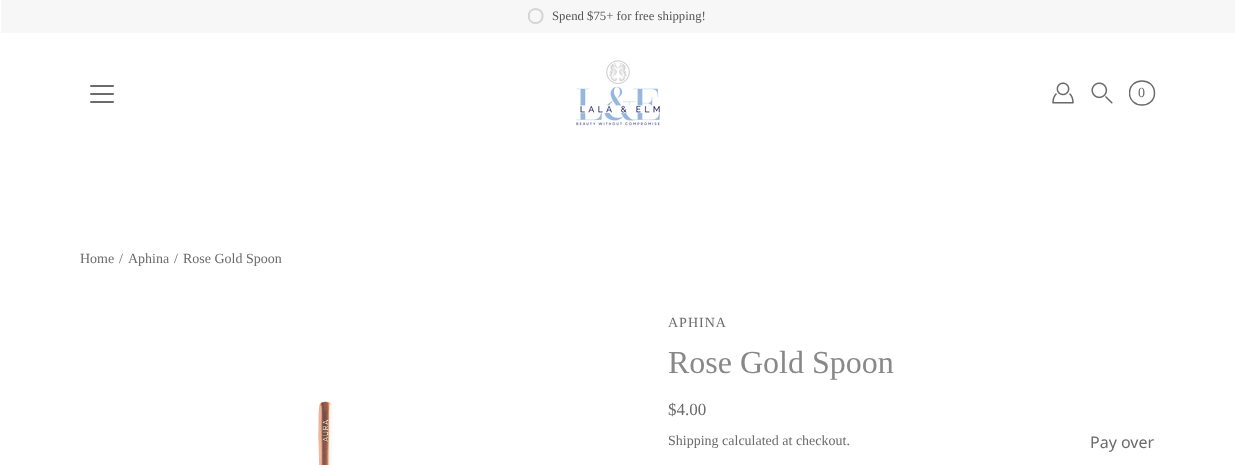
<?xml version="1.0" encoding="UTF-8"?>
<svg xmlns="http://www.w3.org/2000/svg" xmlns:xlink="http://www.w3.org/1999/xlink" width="1235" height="465">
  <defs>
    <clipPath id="clip1"><rect x="1129" y="80" width="27" height="27" /></clipPath>
  </defs>
  <rect width="100%" height="100%" fill="#ffffff" />
  <rect x="1" width="1234" height="33" fill="#f7f7f7" />
  <path d="M 535.5 9 c -9 0 -9 14 0 14 c 9.5 0 9.5 -14 0 -14 z" fill="none" stroke="#d4d4d4" stroke-width="2" />
  <image x="576" y="60" width="84" height="66" xlink:href="image1.png" />
  <rect x="90" y="93" width="24" height="2" rx="1" fill="#6c6a6a" />
  <rect x="90" y="85" width="24" height="2" rx="1" fill="#6c6a6a" />
  <rect x="90" y="101" width="24" height="2" rx="1" fill="#6c6a6a" />
  <image x="1052" y="82" width="22" height="22" xlink:href="image2.png" />
  <image x="1091" y="82" width="22" height="22" xlink:href="image3.png" />
  <g clip-path="url(#clip1)">
    <path d="M 1154.5 93 c 0 16 -25 16 -25 0 c 0 -16 25 -16 25 0 z" fill="none" stroke="#6c6a6a" stroke-width="1.5" />
  </g>
  <image x="318" y="401" width="15" height="64" xlink:href="image4.png" />
  <text x="552" y="20" style="font-family: Liberation Serif; font-size: 12.75px; fill: #545454">Spend $75+ for free shipping!</text>
  <text x="1138" y="97" style="font-family: Liberation Serif; font-size: 14px; fill: #6c6a6a">0</text>
  <text x="80" y="263" style="font-family: Liberation Serif; font-size: 14px; fill: #6c6a6a">Home</text>
  <text x="119" y="263" style="font-family: Liberation Serif; font-size: 14px; fill: #6c6a6a">/</text>
  <text x="128" y="263" style="font-family: Liberation Serif; font-size: 14px; fill: #6c6a6a">Aphina</text>
  <text x="174" y="263" style="font-family: Liberation Serif; font-size: 14px; fill: #6c6a6a">/</text>
  <text x="183" y="263" style="font-family: Liberation Serif; font-size: 14px; fill: #6c6a6a">Rose Gold Spoon</text>
  <text x="668" y="327" style="font-family: Liberation Serif; font-size: 14px; letter-spacing: 1px; fill: #6c6a6a">APHINA</text>
  <text x="668" y="373" style="font-family: Liberation Serif; font-size: 32px; fill: #898787">Rose Gold Spoon</text>
  <text x="668" y="415" style="font-family: Liberation Serif; font-size: 17px; fill: #6c6a6a">$4.00</text>
  <text x="668" y="445" style="font-family: Liberation Serif; font-size: 14px; fill: #6c6a6a">Shipping calculated at checkout.</text>
  <text x="1090" y="448" style="font-family: Noto Sans; font-size: 16px; fill: #6c6a6a">Pay over</text>
</svg>
